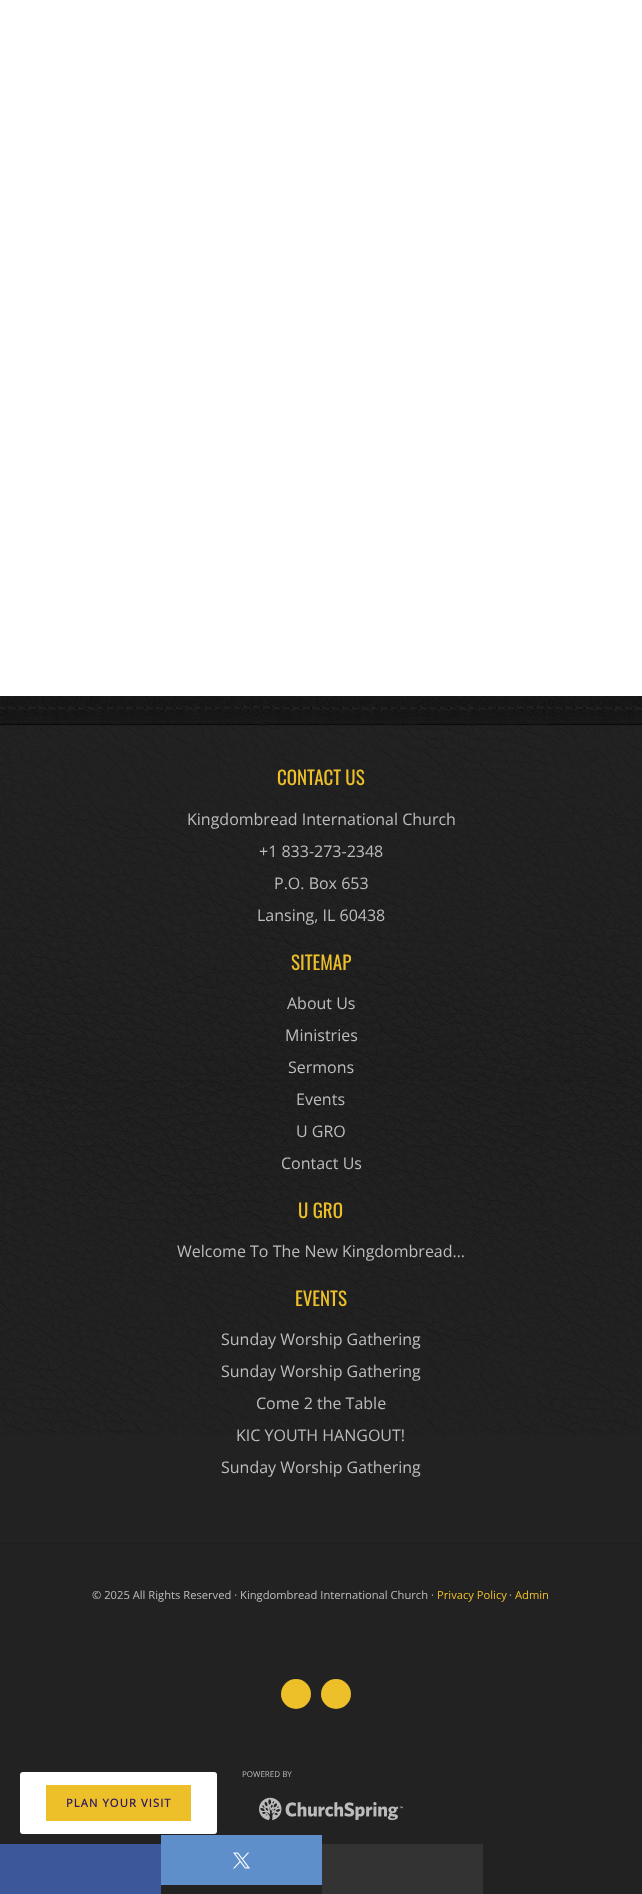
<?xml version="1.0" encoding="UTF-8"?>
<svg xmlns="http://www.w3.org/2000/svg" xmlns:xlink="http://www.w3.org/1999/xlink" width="642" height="1894">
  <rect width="100%" height="100%" fill="#ffffff" />
  <rect y="696" width="642" height="1198" fill="#222222" />
  <image x="0" y="696" width="642" height="739" xlink:href="image1.png" />
  <rect y="1543" width="642" height="1" fill="#1f1f1f" />
  <rect x="641" y="1544" width="1" height="200" fill="#1f1f1f" />
  <circle cx="296" cy="1694" r="15" fill="#edc02a" />
  <circle cx="336" cy="1694" r="15" fill="#edc02a" />
  <image x="259" y="1797" width="144" height="24" xlink:href="image2.png" />
  <rect y="1844" width="161" height="50" fill="#3c579a" />
  <rect x="161" y="1835" width="161" height="50" fill="#5f8fcb" />
  <image x="233" y="1852" width="17" height="17" xlink:href="image3.png" />
  <rect x="322" y="1844" width="161" height="50" fill="#333333" />
  <rect x="20" y="1772" width="197" height="62" rx="3" fill="#ffffff" />
  <rect x="46" y="1785" width="145" height="36" fill="#edc02a" />
  <text x="277" y="785" style="font-family: Oswald; font-size: 19px; fill: #edc02a">CONTACT US</text>
  <text x="187" y="825" style="font-family: Open Sans; font-size: 16px; fill: #bcbcbc">Kingdombread International Church</text>
  <text x="259" y="857" style="font-family: Open Sans; font-size: 16px; fill: #bcbcbc">+1 833-273-2348</text>
  <text x="274" y="889" style="font-family: Open Sans; font-size: 16px; fill: #bcbcbc">P.O. Box 653</text>
  <text x="257" y="921" style="font-family: Open Sans; font-size: 16px; fill: #bcbcbc">Lansing, IL 60438</text>
  <text x="291" y="970" style="font-family: Oswald; font-size: 19px; fill: #edc02a">SITEMAP</text>
  <text x="287" y="1009" style="font-family: Open Sans; font-size: 16px; fill: #bcbcbc">About Us</text>
  <text x="285" y="1041" style="font-family: Open Sans; font-size: 16px; fill: #bcbcbc">Ministries</text>
  <text x="288" y="1073" style="font-family: Open Sans; font-size: 16px; fill: #bcbcbc">Sermons</text>
  <text x="296" y="1105" style="font-family: Open Sans; font-size: 16px; fill: #bcbcbc">Events</text>
  <text x="296" y="1137" style="font-family: Open Sans; font-size: 16px; fill: #bcbcbc">U GRO</text>
  <text x="281" y="1169" style="font-family: Open Sans; font-size: 16px; fill: #bcbcbc">Contact Us</text>
  <text x="298" y="1218" style="font-family: Oswald; font-size: 19px; fill: #edc02a">U GRO</text>
  <text x="177" y="1257" style="font-family: Open Sans; font-size: 16px; fill: #bcbcbc">Welcome To The New Kingdombread…</text>
  <text x="295" y="1306" style="font-family: Oswald; font-size: 19px; fill: #edc02a">EVENTS</text>
  <text x="221" y="1345" style="font-family: Open Sans; font-size: 16px; fill: #bcbcbc">Sunday Worship Gathering</text>
  <text x="221" y="1377" style="font-family: Open Sans; font-size: 16px; fill: #bcbcbc">Sunday Worship Gathering</text>
  <text x="256" y="1409" style="font-family: Open Sans; font-size: 16px; fill: #bcbcbc">Come 2 the Table</text>
  <text x="236" y="1441" style="font-family: Open Sans; font-size: 16px; fill: #bcbcbc">KIC YOUTH HANGOUT!</text>
  <text x="221" y="1473" style="font-family: Open Sans; font-size: 16px; fill: #bcbcbc">Sunday Worship Gathering</text>
  <text x="92" y="1599" style="font-family: Open Sans; font-size: 11.2px; fill: #bcbcbc">© 2025 All Rights Reserved · Kingdombread International Church ·</text>
  <text x="437" y="1599" style="font-family: Open Sans; font-size: 11.2px; fill: #edc02a">Privacy Policy</text>
  <text x="509" y="1599" style="font-family: Open Sans; font-size: 11.2px; fill: #bcbcbc">·</text>
  <text x="515" y="1599" style="font-family: Open Sans; font-size: 11.2px; fill: #edc02a">Admin</text>
  <text x="242" y="1777" style="font-family: Open Sans; font-size: 8px; fill: #bcbcbc">POWERED BY</text>
  <text x="66" y="1807" style="font-family: Open Sans; font-size: 11.2px; font-weight: bold; letter-spacing: 1.1px; fill: #331962">PLAN YOUR VISIT</text>
</svg>
